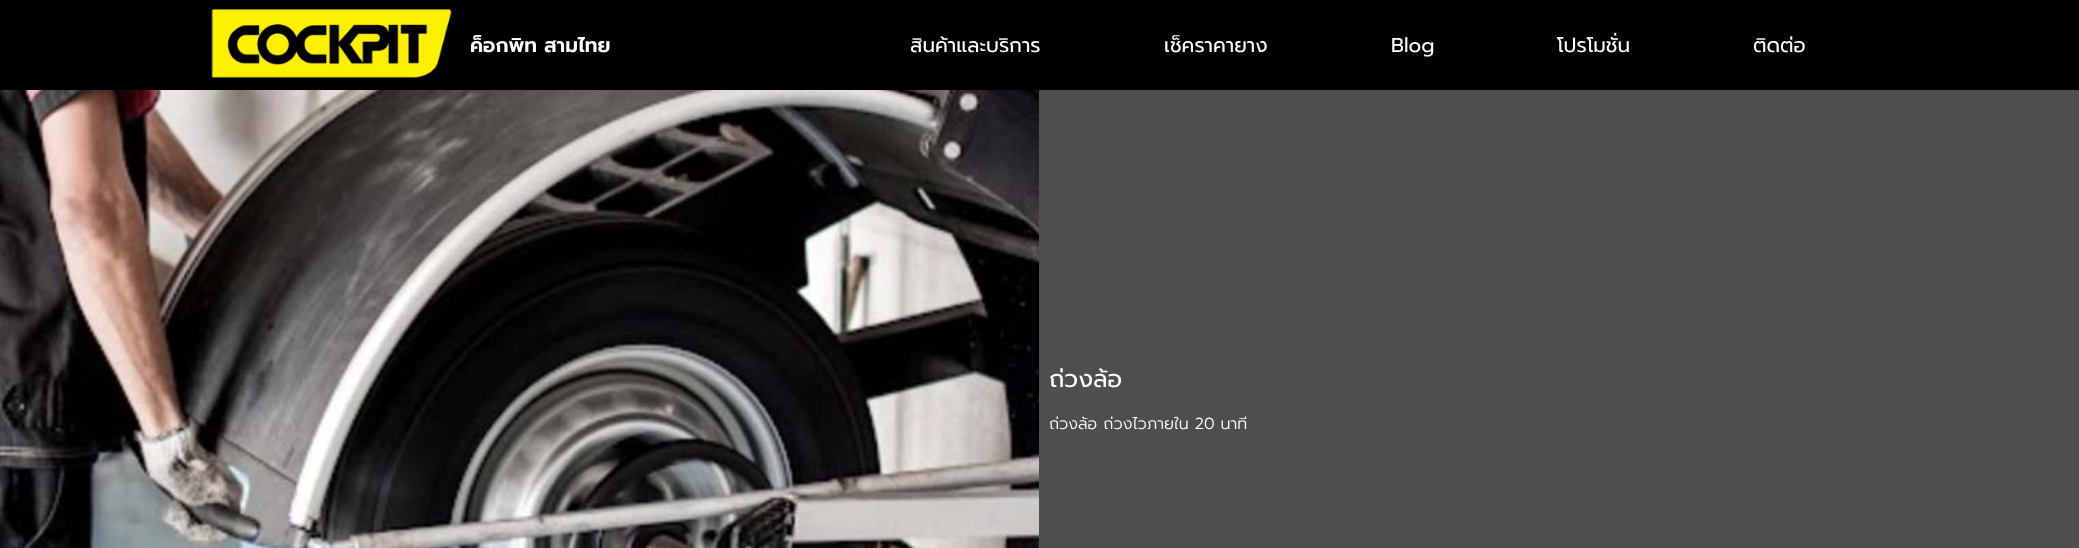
<?xml version="1.0" encoding="UTF-8"?>
<svg xmlns="http://www.w3.org/2000/svg" xmlns:xlink="http://www.w3.org/1999/xlink" width="2079" height="548">
  <rect width="100%" height="100%" fill="#4e4e4e" />
  <rect width="2079" height="90" fill="#000000" />
  <image x="211" y="9" width="241" height="70" xlink:href="image1.png" />
  <image x="0" y="90" width="1039" height="458" xlink:href="image2.png" />
  <text x="470" y="52" style="font-family: Prompt; font-size: 20px; font-weight: 600; fill: #ffffff">ค็อกพิท สามไทย</text>
  <text x="910" y="52" style="font-family: Prompt; font-size: 20px; fill: #ffffff">สินค้าและบริการ</text>
  <text x="1164" y="52" style="font-family: Prompt; font-size: 20px; fill: #ffffff">เช็คราคายาง</text>
  <text x="1391" y="52" style="font-family: Prompt; font-size: 20px; fill: #ffffff">Blog</text>
  <text x="1557" y="52" style="font-family: Prompt; font-size: 20px; fill: #ffffff">โปรโมชั่น</text>
  <text x="1753" y="52" style="font-family: Prompt; font-size: 20px; fill: #ffffff">ติดต่อ</text>
  <text x="1049" y="387" style="font-family: Prompt; font-size: 24px; fill: #ffffff">ถ่วงล้อ</text>
  <text x="1049" y="429" style="font-family: Prompt; font-size: 16px; font-weight: 300; fill: #ffffff">ถ่วงล้อ ถ่วงไวภายใน 20 นาที</text>
</svg>
